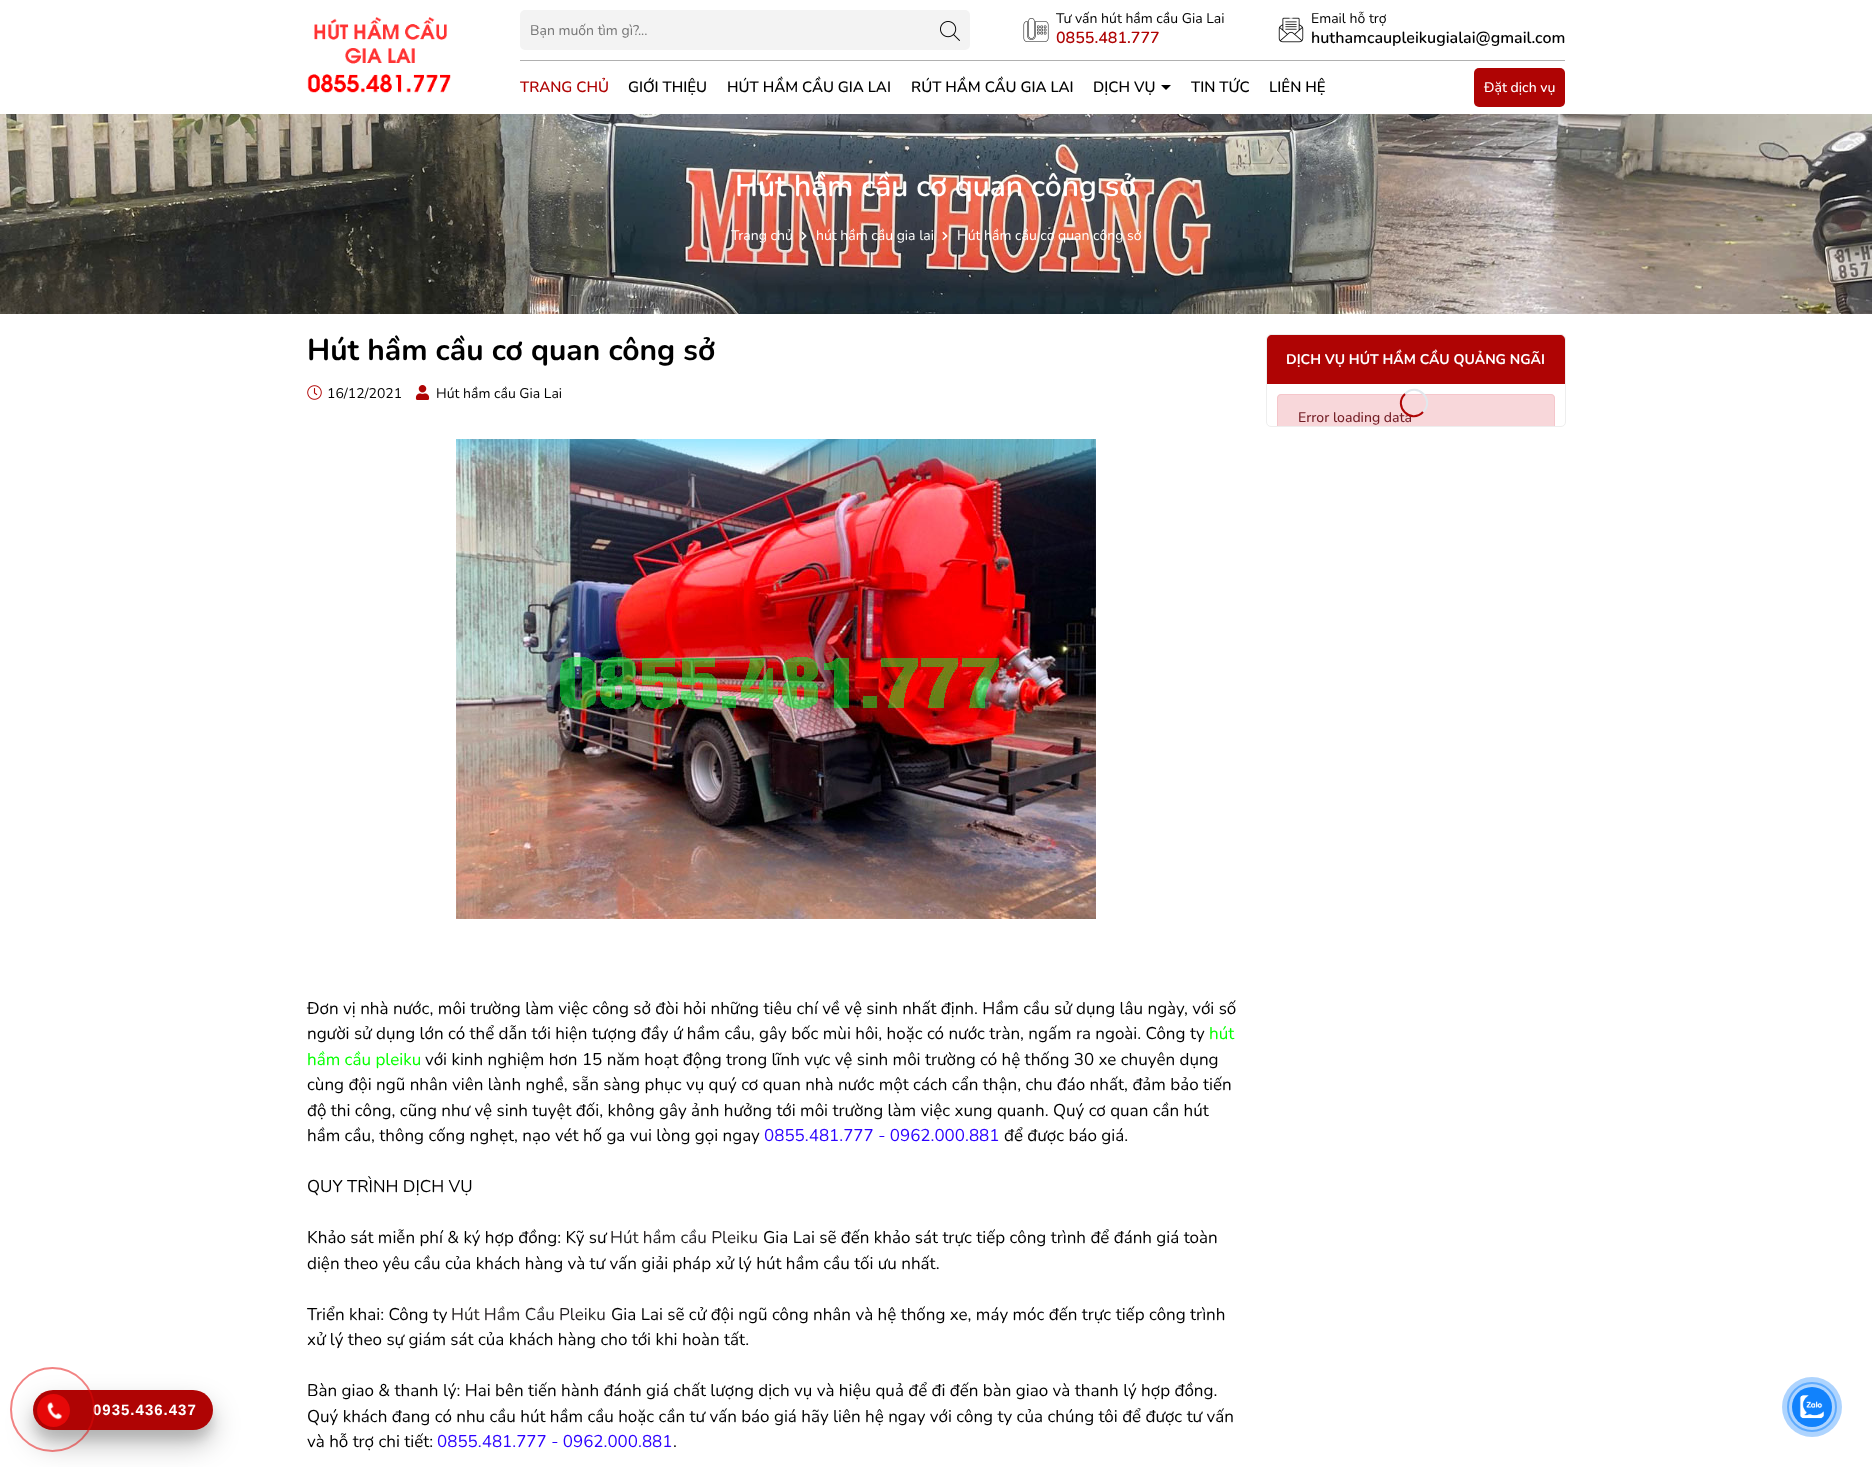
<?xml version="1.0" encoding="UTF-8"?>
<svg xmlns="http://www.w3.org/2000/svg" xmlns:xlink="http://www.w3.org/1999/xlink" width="1872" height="1467">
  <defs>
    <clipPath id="clip1"><rect x="1267" y="384" width="298" height="42" /></clipPath>
  </defs>
  <rect width="100%" height="100%" fill="#ffffff" />
  <image x="307" y="17" width="144" height="76" xlink:href="image1.png" />
  <rect x="520" y="60" width="1045" height="1" fill="#b0b0b0" />
  <rect x="520" y="10" width="450" height="40" rx="5" fill="#f3f3f3" />
  <image x="940" y="21" width="20" height="20" xlink:href="image2.png" />
  <image x="1023" y="18" width="26" height="24" xlink:href="image3.png" />
  <image x="1278" y="17" width="26" height="26" xlink:href="image4.png" />
  <path d="M 1161 85 h 10 l -5 5 z" fill="#000000" />
  <rect x="1474" y="68" width="91" height="39" rx="5" fill="#af0404" />
  <rect x="33" y="1400" width="180" height="40" rx="20" fill="#000000" fill-opacity="0.1" filter="blur(5px)" />
  <rect x="33" y="1404" width="180" height="40" rx="20" fill="#000000" fill-opacity="0.25" filter="blur(14px)" />
  <rect x="33" y="1390" width="180" height="40" rx="20" fill="#af0404" />
  <image x="0" y="114" width="1872" height="200" xlink:href="image6.png" />
  <image x="801" y="231" width="6" height="10" xlink:href="image7.png" />
  <image x="942" y="231" width="6" height="10" xlink:href="image8.png" />
  <image x="307" y="385" width="15" height="15" xlink:href="image9.png" />
  <image x="415" y="385" width="15" height="15" xlink:href="image10.png" />
  <image x="456" y="439" width="640" height="480" xlink:href="image11.png" />
  <rect x="1266.5" y="334.5" width="299" height="92" rx="4.5" fill="none" stroke="#eeeeee" />
  <path d="M 1272 335 h 288 c 3 0 5 2 5 5 v 44 h -298 v -44 c 0 -3 2 -5 5 -5 z" fill="#af0404" />
  <path d="M 1281 394 h 270 c 2 0 4 2 4 4 v 28 h -278 v -28 c 0 -2 2 -4 4 -4 z" fill="#f8d7da" />
  <g clip-path="url(#clip1)">
    <rect x="1277.5" y="394.5" width="277" height="46" rx="3.5" fill="none" stroke="#f5c6cb" />
  </g>
  <circle cx="1812" cy="1407" r="24" fill="none" stroke="#88c1fe" stroke-width="2" />
  <circle cx="1812" cy="1407" r="30" fill="#1182fc" fill-opacity="0.34" />
  <circle cx="1812" cy="1407" r="20" fill="#1182fc" />
  <image x="1799" y="1395" width="25" height="24" xlink:href="image12.png" />
  <text x="530" y="35" style="font-family: Nunito; font-size: 14px; fill: #757575">Bạn muốn tìm gì?...</text>
  <text x="1056" y="23" style="font-family: Nunito; font-size: 14px; fill: #000000">Tư vấn hút hầm cầu Gia Lai</text>
  <text x="1056" y="43" style="font-family: Nunito; font-size: 16px; font-weight: 600; fill: #af0404">0855.481.777</text>
  <text x="1311" y="23" style="font-family: Nunito; font-size: 14px; fill: #000000">Email hỗ trợ</text>
  <text x="1311" y="43" style="font-family: Nunito; font-size: 16px; font-weight: 600; fill: #000000">huthamcaupleikugialai@gmail.com</text>
  <text x="520" y="92" style="font-family: Nunito; font-size: 15px; font-weight: 600; fill: #af0404">TRANG CHỦ</text>
  <text x="628" y="92" style="font-family: Nunito; font-size: 15px; font-weight: 600; fill: #000000">GIỚI THIỆU</text>
  <text x="727" y="92" style="font-family: Nunito; font-size: 15px; font-weight: 600; fill: #000000">HÚT HẦM CẦU GIA LAI</text>
  <text x="911" y="92" style="font-family: Nunito; font-size: 15px; font-weight: 600; fill: #000000">RÚT HẦM CẦU GIA LAI</text>
  <text x="1093" y="92" style="font-family: Nunito; font-size: 15px; font-weight: 600; fill: #000000">DỊCH VỤ</text>
  <text x="1191" y="92" style="font-family: Nunito; font-size: 15px; font-weight: 600; fill: #000000">TIN TỨC</text>
  <text x="1269" y="92" style="font-family: Nunito; font-size: 15px; font-weight: 600; fill: #000000">LIÊN HỆ</text>
  <text x="1484" y="92" style="font-family: Nunito; font-size: 14px; font-weight: 500; fill: #ffffff">Đặt dịch vụ</text>
  <text x="93" y="1415" style="font-family: Liberation Sans; font-size: 15px; font-weight: bold; letter-spacing: 1px; fill: #ffffff">0935.436.437</text>
  <circle cx="52.5" cy="1409.5" r="41.5" fill="none" stroke="#e60808" stroke-opacity="0.5" stroke-width="2" />
  <circle cx="53.5" cy="1410.5" r="16.5" fill="#e60808" />
  <image x="47" y="1402" width="16" height="18" xlink:href="image5.png" />
  <text x="735" y="196" style="font-family: Nunito; font-size: 30px; font-weight: 600; fill: #ffffff">Hút hầm cầu cơ quan công sở</text>
  <text x="731" y="240" style="font-family: Nunito; font-size: 14px; fill: #ffffff">Trang chủ</text>
  <text x="816" y="240" style="font-family: Nunito; font-size: 14px; fill: #ffffff">hút hầm cầu gia lai</text>
  <text x="957" y="240" style="font-family: Nunito; font-size: 14px; fill: #ffffff">Hút hầm cầu cơ quan công sở</text>
  <text x="307" y="360" style="font-family: Nunito; font-size: 30px; font-weight: bold; fill: #000000">Hút hầm cầu cơ quan công sở</text>
  <text x="327" y="398" style="font-family: Nunito; font-size: 14px; fill: #000000">16/12/2021</text>
  <text x="436" y="398" style="font-family: Nunito; font-size: 14px; fill: #000000">Hút hầm cầu Gia Lai</text>
  <text x="307" y="1014" style="font-family: Nunito; font-size: 17px; fill: #000000">Đơn vị nhà nước, môi trường làm việc công sở đòi hỏi những tiêu chí về vệ sinh nhất định. Hầm cầu sử dụng lâu ngày, với số</text>
  <text x="307" y="1039" style="font-family: Nunito; font-size: 17px; fill: #000000">người sử dụng lớn có thể dẫn tới hiện tượng đầy ứ hầm cầu, gây bốc mùi hôi, hoặc có nước tràn, ngấm ra ngoài. Công ty</text>
  <text x="1209" y="1039" style="font-family: Nunito; font-size: 17px; fill: #04ff00">hút</text>
  <text x="307" y="1065" style="font-family: Nunito; font-size: 17px; fill: #04ff00">hầm cầu pleiku</text>
  <text x="425" y="1065" style="font-family: Nunito; font-size: 17px; fill: #000000">với kinh nghiệm hơn 15 năm hoạt động trong lĩnh vực vệ sinh môi trường có hệ thống 30 xe chuyên dụng</text>
  <text x="307" y="1090" style="font-family: Nunito; font-size: 17px; fill: #000000">cùng đội ngũ nhân viên lành nghề, sẵn sàng phục vụ quý cơ quan nhà nước một cách cẩn thận, chu đáo nhất, đảm bảo tiến</text>
  <text x="307" y="1116" style="font-family: Nunito; font-size: 17px; fill: #000000">độ thi công, cũng như vệ sinh tuyệt đối, không gây ảnh hưởng tới môi trường làm việc xung quanh. Quý cơ quan cần hút</text>
  <text x="307" y="1141" style="font-family: Nunito; font-size: 17px; fill: #000000">hầm cầu, thông cống nghẹt, nạo vét hố ga vui lòng gọi ngay</text>
  <text x="764" y="1141" style="font-family: Nunito; font-size: 17px; fill: #2b00fe">0855.481.777 - 0962.000.881</text>
  <text x="1004" y="1141" style="font-family: Nunito; font-size: 17px; fill: #000000">để được báo giá.</text>
  <text x="307" y="1192" style="font-family: Nunito; font-size: 17px; fill: #000000">QUY TRÌNH DỊCH VỤ</text>
  <text x="307" y="1243" style="font-family: Nunito; font-size: 17px; fill: #000000">Khảo sát miễn phí &amp; ký hợp đồng: Kỹ sư</text>
  <text x="610" y="1243" style="font-family: Nunito; font-size: 17px; fill: #231f20">Hút hầm cầu Pleiku</text>
  <text x="763" y="1243" style="font-family: Nunito; font-size: 17px; fill: #000000">Gia Lai sẽ đến khảo sát trực tiếp công trình để đánh giá toàn</text>
  <text x="307" y="1269" style="font-family: Nunito; font-size: 17px; fill: #000000">diện theo yêu cầu của khách hàng và tư vấn giải pháp xử lý hút hầm cầu tối ưu nhất.</text>
  <text x="307" y="1320" style="font-family: Nunito; font-size: 17px; fill: #000000">Triển khai: Công ty</text>
  <text x="451" y="1320" style="font-family: Nunito; font-size: 17px; fill: #231f20">Hút Hầm Cầu Pleiku</text>
  <text x="611" y="1320" style="font-family: Nunito; font-size: 17px; fill: #000000">Gia Lai sẽ cử đội ngũ công nhân và hệ thống xe, máy móc đến trực tiếp công trình</text>
  <text x="307" y="1345" style="font-family: Nunito; font-size: 17px; fill: #000000">xử lý theo sự giám sát của khách hàng cho tới khi hoàn tất.</text>
  <text x="307" y="1396" style="font-family: Nunito; font-size: 17px; fill: #000000">Bàn giao &amp; thanh lý: Hai bên tiến hành đánh giá chất lượng dịch vụ và hiệu quả để đi đến bàn giao và thanh lý hợp đồng.</text>
  <text x="307" y="1422" style="font-family: Nunito; font-size: 17px; fill: #000000">Quý khách đang có nhu cầu hút hầm cầu hoặc cần tư vấn báo giá hãy liên hệ ngay với công ty của chúng tôi để được tư vấn</text>
  <text x="307" y="1447" style="font-family: Nunito; font-size: 17px; fill: #000000">và hỗ trợ chi tiết:</text>
  <text x="437" y="1447" style="font-family: Nunito; font-size: 17px; fill: #2b00fe">0855.481.777 - 0962.000.881</text>
  <text x="673" y="1447" style="font-family: Nunito; font-size: 17px; fill: #000000">.</text>
  <text x="1286" y="364" style="font-family: Nunito; font-size: 14px; font-weight: bold; fill: #ffffff">DỊCH VỤ HÚT HẦM CẦU QUẢNG NGÃI</text>
  <text x="1298" y="422" style="font-family: Nunito; font-size: 14px; font-weight: 500; fill: #721c24">Error loading data</text>
  <path d="M 1405 394 c 12 -12.5 30.5 6 18 18" fill="none" stroke="#e1e8ed" stroke-width="2" />
  <path d="M 1423 412 c -12 12.5 -30.5 -6 -18 -18" fill="none" stroke="#af0404" stroke-width="2" />
</svg>
